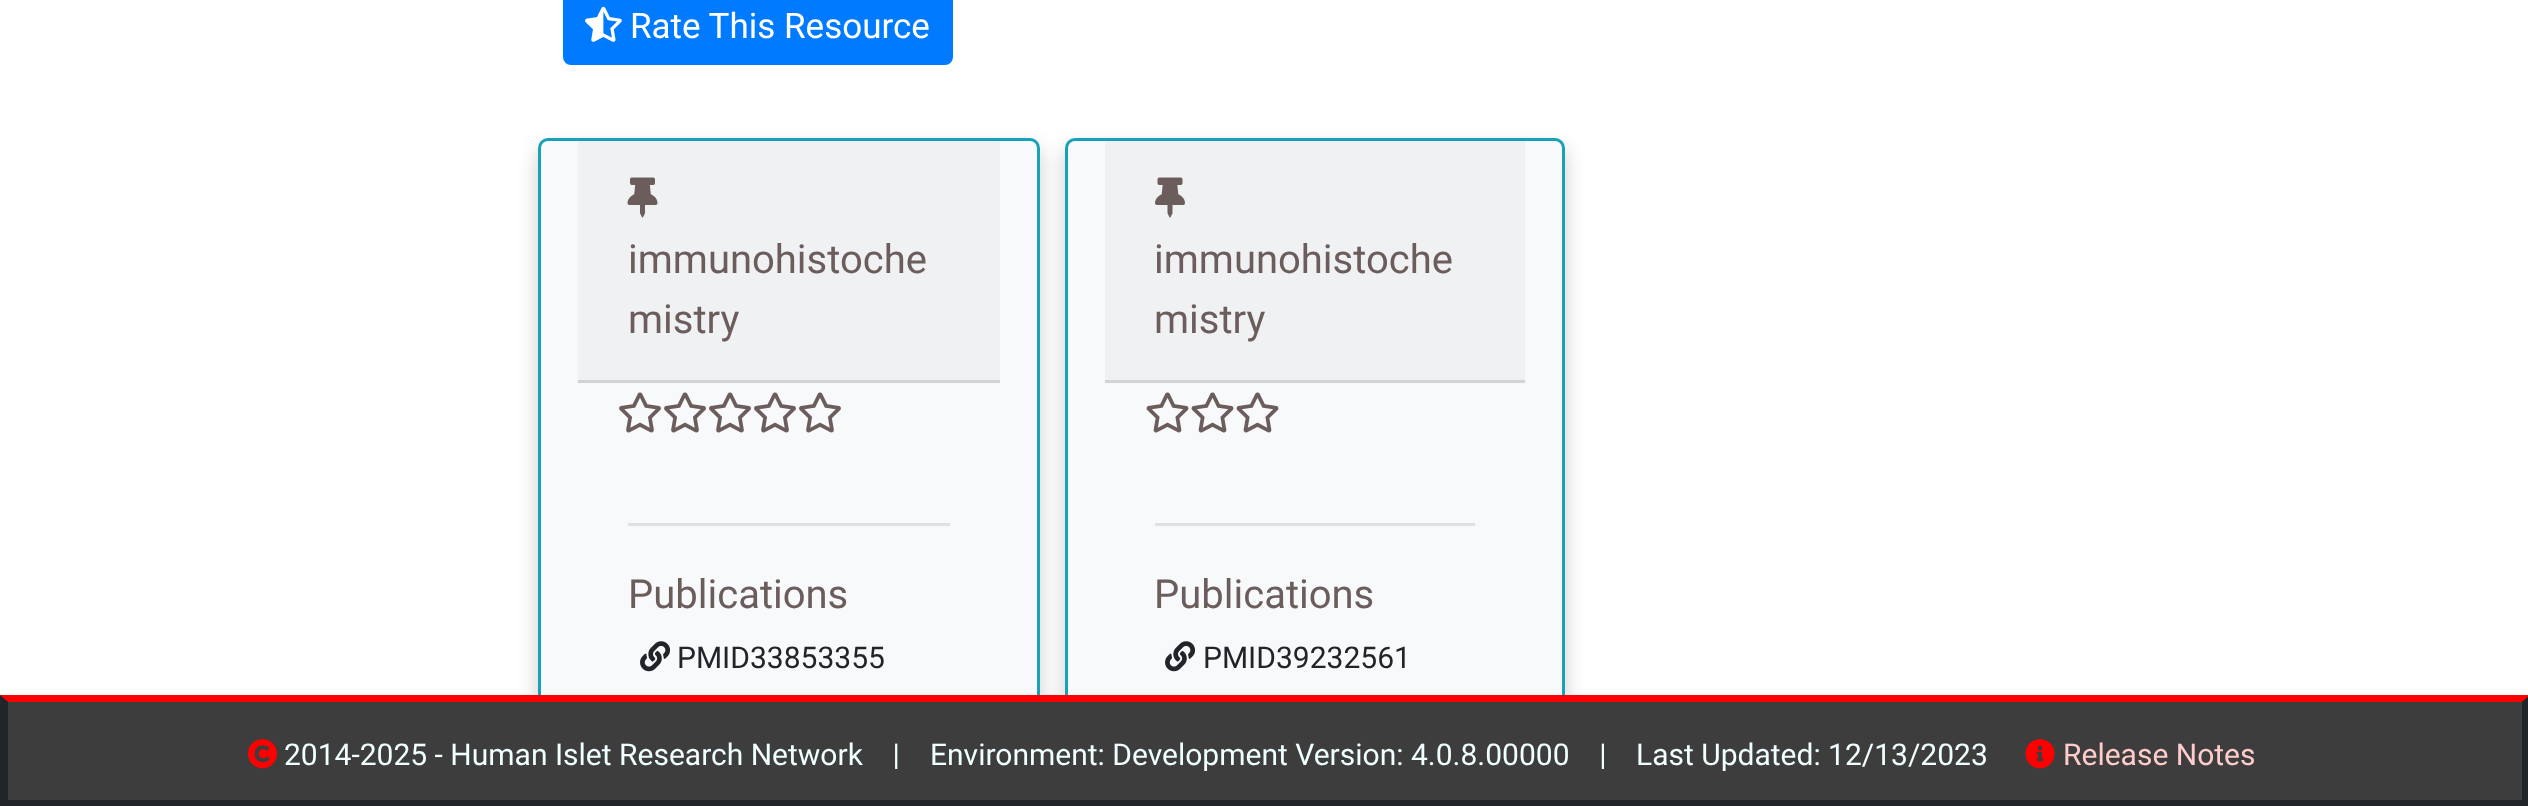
<?xml version="1.0" encoding="UTF-8"?>
<svg xmlns="http://www.w3.org/2000/svg" xmlns:xlink="http://www.w3.org/1999/xlink" width="2528" height="806">
  <rect width="100%" height="100%" fill="#ffffff" />
  <rect x="564.5" y="-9.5" width="387" height="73" rx="6.5" fill="#007bff" stroke="#007bff" stroke-width="3" />
  <image x="585" y="6" width="37" height="36" xlink:href="image1.png" />
  <rect x="538" y="148" width="502" height="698" rx="10" fill="#000000" fill-opacity="0.2" filter="blur(10px)" />
  <rect x="539.5" y="139.5" width="499" height="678" rx="8.5" fill="#f8f9fa" stroke="#17a2b8" stroke-width="3" />
  <rect x="578" y="140" width="422" height="240" fill="#000000" fill-opacity="0.03" />
  <rect x="578" y="380" width="422" height="3" fill="#d2d3d4" />
  <image x="627" y="177" width="31" height="41" xlink:href="image2.png" />
  <image x="619" y="392" width="42" height="41" xlink:href="image3.png" />
  <image x="664" y="392" width="42" height="41" xlink:href="image3.png" />
  <image x="709" y="392" width="42" height="41" xlink:href="image3.png" />
  <image x="754" y="392" width="42" height="41" xlink:href="image3.png" />
  <image x="799" y="392" width="42" height="41" xlink:href="image3.png" />
  <rect x="628" y="523" width="322" height="3" fill="#dfe0e1" />
  <image x="640" y="641" width="31" height="31" xlink:href="image4.png" />
  <rect x="1065" y="148" width="500" height="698" rx="10" fill="#000000" fill-opacity="0.2" filter="blur(10px)" />
  <rect x="1066.5" y="139.5" width="497" height="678" rx="8.5" fill="#f8f9fa" stroke="#17a2b8" stroke-width="3" />
  <rect x="1105" y="140" width="420" height="240" fill="#000000" fill-opacity="0.03" />
  <rect x="1105" y="380" width="420" height="3" fill="#d2d3d4" />
  <image x="1155" y="177" width="30" height="41" xlink:href="image5.png" />
  <image x="1146" y="392" width="43" height="41" xlink:href="image6.png" />
  <image x="1191" y="392" width="43" height="41" xlink:href="image6.png" />
  <image x="1236" y="392" width="43" height="41" xlink:href="image6.png" />
  <rect x="1155" y="523" width="320" height="3" fill="#dfe0e1" />
  <image x="1165" y="641" width="31" height="31" xlink:href="image4.png" />
  <rect y="695" width="2528" height="105" fill="#3e3d3d" />
  <path d="M 0 695 h 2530 l -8 7 h -2514 z" fill="#ff0000" />
  <path d="M 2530 695 v 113 l -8 -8 v -98 z" fill="#212529" />
  <rect y="800" width="2528" height="6" fill="#212529" />
  <path d="M 0 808 v -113 l 8 7 v 98 z" fill="#212529" />
  <image x="248" y="739" width="29" height="30" xlink:href="image7.png" />
  <image x="2025" y="739" width="30" height="30" xlink:href="image8.png" />
  <text x="630" y="38" style="font-family: Roboto; font-size: 35px; fill: #ffffff">Rate This Resource</text>
  <text x="628" y="273" style="font-family: Roboto; font-size: 40px; fill: #6c5d5d">immunohistoche</text>
  <text x="628" y="333" style="font-family: Roboto; font-size: 40px; fill: #6c5d5d">mistry</text>
  <text x="628" y="608" style="font-family: Roboto; font-size: 40px; fill: #6c5d5d">Publications</text>
  <text x="677" y="668" style="font-family: Roboto; font-size: 30px; fill: #212529">PMID33853355</text>
  <text x="1154" y="273" style="font-family: Roboto; font-size: 40px; fill: #6c5d5d">immunohistoche</text>
  <text x="1154" y="333" style="font-family: Roboto; font-size: 40px; fill: #6c5d5d">mistry</text>
  <text x="1154" y="608" style="font-family: Roboto; font-size: 40px; fill: #6c5d5d">Publications</text>
  <text x="1203" y="668" style="font-family: Roboto; font-size: 30px; fill: #212529">PMID39232561</text>
  <text x="284" y="765" style="font-family: Roboto; font-size: 30px; fill: #f0ffff" xml:space="preserve">2014-2025 - Human Islet Research Network    |</text>
  <text x="930" y="765" style="font-family: Roboto; font-size: 30px; fill: #f0ffff" xml:space="preserve">Environment: Development Version: 4.0.8.00000    |</text>
  <text x="1636" y="765" style="font-family: Roboto; font-size: 30px; fill: #f0ffff">Last Updated: 12/13/2023</text>
  <text x="2063" y="765" style="font-family: Roboto; font-size: 30px; fill: #ffcccc">Release Notes</text>
</svg>
